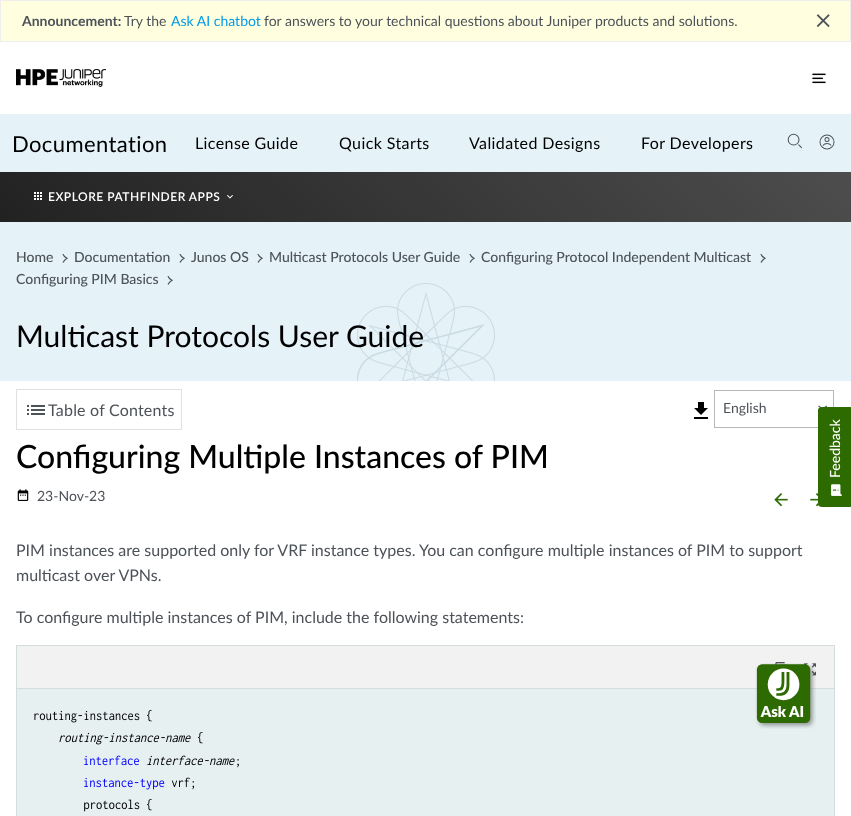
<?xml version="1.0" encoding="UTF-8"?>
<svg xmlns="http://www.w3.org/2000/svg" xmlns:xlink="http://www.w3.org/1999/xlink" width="851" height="816">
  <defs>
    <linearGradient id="g1" gradientUnits="userSpaceOnUse" x1="200" y1="422" x2="651" y2="-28"><stop offset="0" stop-color="#222222" /><stop offset="1" stop-color="#4d4d4d" /></linearGradient>
  </defs>
  <rect width="100%" height="100%" fill="#ffffff" />
  <rect x="0.5" y="0.5" width="850" height="41" fill="#ffffe0" stroke="#eeeeee" />
  <image x="816" y="14" width="14" height="14" xlink:href="image1.png" />
  <image x="16" y="69" width="90" height="18" xlink:href="image2.png" />
  <image x="812" y="73" width="14" height="11" xlink:href="image3.png" />
  <rect y="114" width="851" height="58" fill="#e5f2f8" />
  <image x="787" y="133" width="15" height="16" xlink:href="image4.png" />
  <image x="819" y="134" width="16" height="16" xlink:href="image5.png" />
  <rect y="172" width="851" height="50" fill="url(#g1)" />
  <image x="34" y="192" width="8" height="8" xlink:href="image6.png" />
  <image x="227" y="195" width="6" height="4" xlink:href="image7.png" />
  <rect y="222" width="851" height="159" fill="#e5f2f8" />
  <image x="357" y="283" width="138" height="98" xlink:href="image8.png" />
  <image x="62" y="254" width="6" height="9" xlink:href="image9.png" />
  <image x="179" y="254" width="6" height="9" xlink:href="image9.png" />
  <image x="257" y="254" width="6" height="9" xlink:href="image9.png" />
  <image x="469" y="254" width="6" height="9" xlink:href="image9.png" />
  <image x="760" y="254" width="6" height="9" xlink:href="image10.png" />
  <image x="167" y="276" width="6" height="9" xlink:href="image11.png" />
  <rect x="16.5" y="389.5" width="165" height="40" fill="none" stroke="#e0e0e0" />
  <image x="27" y="404" width="18" height="11" xlink:href="image12.png" />
  <image x="694" y="402" width="14" height="17" xlink:href="image13.png" />
  <rect x="714.5" y="390.5" width="119" height="37" fill="none" stroke="#b5b8b9" />
  <image x="818" y="405" width="9" height="3" xlink:href="image14.png" />
  <image x="17" y="489" width="12" height="12" xlink:href="image15.png" />
  <image x="774" y="493" width="14" height="14" xlink:href="image16.png" />
  <image x="810" y="493" width="9" height="14" xlink:href="image17.png" />
  <rect x="16.5" y="645.5" width="818" height="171" fill="none" stroke="#d4dddd" />
  <rect x="17" y="646" width="817" height="42" fill="#f2f2f2" />
  <rect x="17" y="688" width="817" height="1" fill="#d4dddd" />
  <image x="775" y="662" width="13" height="3" xlink:href="image18.png" />
  <image x="804" y="663" width="12" height="13" xlink:href="image19.png" />
  <rect x="17" y="689" width="817" height="127" fill="#e6f0f0" />
  <image x="34" y="710" width="118" height="13" xlink:href="image20.png" />
  <image x="59" y="732" width="132" height="13" xlink:href="image21.png" />
  <image x="197" y="732" width="6" height="12" xlink:href="image22.png" />
  <image x="84" y="755" width="55" height="11" xlink:href="image23.png" />
  <image x="147" y="755" width="88" height="11" xlink:href="image24.png" />
  <image x="237" y="759" width="2" height="9" xlink:href="image25.png" />
  <image x="84" y="777" width="81" height="13" xlink:href="image26.png" />
  <image x="171" y="777" width="24" height="13" xlink:href="image27.png" />
  <image x="84" y="799" width="68" height="13" xlink:href="image28.png" />
  <image x="755" y="663" width="61" height="66" xlink:href="image29.png" />
  <path d="M 818 504 v -94 c 0 -2 2 -3 4 -3 h 28 c 1 0 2 1 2 3 v 94 c 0 2 -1 3 -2 3 h -28 c -2 0 -4 -1 -4 -3 z" fill="#2d6a00" />
  <image x="831" y="484" width="11" height="12" xlink:href="image30.png" />
  <text x="22" y="26" style="font-family: Lato; font-size: 14px; font-weight: bold; fill: #4d5259">Announcement:</text>
  <text x="124" y="26" style="font-family: Lato; font-size: 14px; fill: #4d5259">Try the</text>
  <text x="171" y="26" style="font-family: Lato; font-size: 14px; fill: #039be5">Ask AI chatbot</text>
  <text x="264" y="26" style="font-family: Lato; font-size: 14px; fill: #4d5259">for answers to your technical questions about Juniper products and solutions.</text>
  <text x="12" y="152" style="font-family: Lato; font-size: 22px; letter-spacing: 0.4px; fill: #000000">Documentation</text>
  <text x="195" y="149" style="font-family: Lato; font-size: 16px; letter-spacing: 0.4px; fill: #000000">License Guide</text>
  <text x="339" y="149" style="font-family: Lato; font-size: 16px; letter-spacing: 0.4px; fill: #000000">Quick Starts</text>
  <text x="469" y="149" style="font-family: Lato; font-size: 16px; letter-spacing: 0.4px; fill: #000000">Validated Designs</text>
  <text x="641" y="149" style="font-family: Lato; font-size: 16px; letter-spacing: 0.4px; fill: #000000">For Developers</text>
  <text x="48" y="201" style="font-family: Lato; font-size: 12px; font-weight: 600; letter-spacing: 0.5px; fill: #ffffff">EXPLORE PATHFINDER APPS</text>
  <text x="16" y="262" style="font-family: Lato; font-size: 14px; font-weight: 500; fill: #4d5259">Home</text>
  <text x="74" y="262" style="font-family: Lato; font-size: 14px; font-weight: 500; fill: #4d5259">Documentation</text>
  <text x="191" y="262" style="font-family: Lato; font-size: 14px; font-weight: 500; fill: #4d5259">Junos OS</text>
  <text x="269" y="262" style="font-family: Lato; font-size: 14px; font-weight: 500; fill: #4d5259">Multicast Protocols User Guide</text>
  <text x="481" y="262" style="font-family: Lato; font-size: 14px; font-weight: 500; fill: #4d5259">Configuring Protocol Independent Multicast</text>
  <text x="16" y="284" style="font-family: Lato; font-size: 14px; font-weight: 500; fill: #4d5259">Configuring PIM Basics</text>
  <text x="16" y="347" style="font-family: Lato; font-size: 30px; fill: #000000">Multicast Protocols User Guide</text>
  <text x="48" y="416" style="font-family: Lato; font-size: 16px; letter-spacing: 0.2px; fill: #4d5259">Table of Contents</text>
  <text x="723" y="413" style="font-family: Lato; font-size: 14px; fill: #4d5259">English</text>
  <text x="16" y="468" style="font-family: Lato; font-size: 32px; font-weight: 500; fill: #000000">Configuring Multiple Instances of PIM</text>
  <text x="37" y="501" style="font-family: Lato; font-size: 14px; fill: #4d5259">23-Nov-23</text>
  <text x="16" y="556" style="font-family: Lato; font-size: 16px; fill: #4d5259">PIM instances are supported only for VRF instance types. You can configure multiple instances of PIM to support</text>
  <text x="16" y="581" style="font-family: Lato; font-size: 16px; fill: #4d5259">multicast over VPNs.</text>
  <text x="16" y="623" style="font-family: Lato; font-size: 16px; fill: #4d5259">To configure multiple instances of PIM, include the following statements:</text>
  <text x="840" y="478" transform="rotate(-90 840 478)" style="font-family: Lato; font-size: 14px; font-weight: 500; fill: #ffffff">Feedback</text>
</svg>
